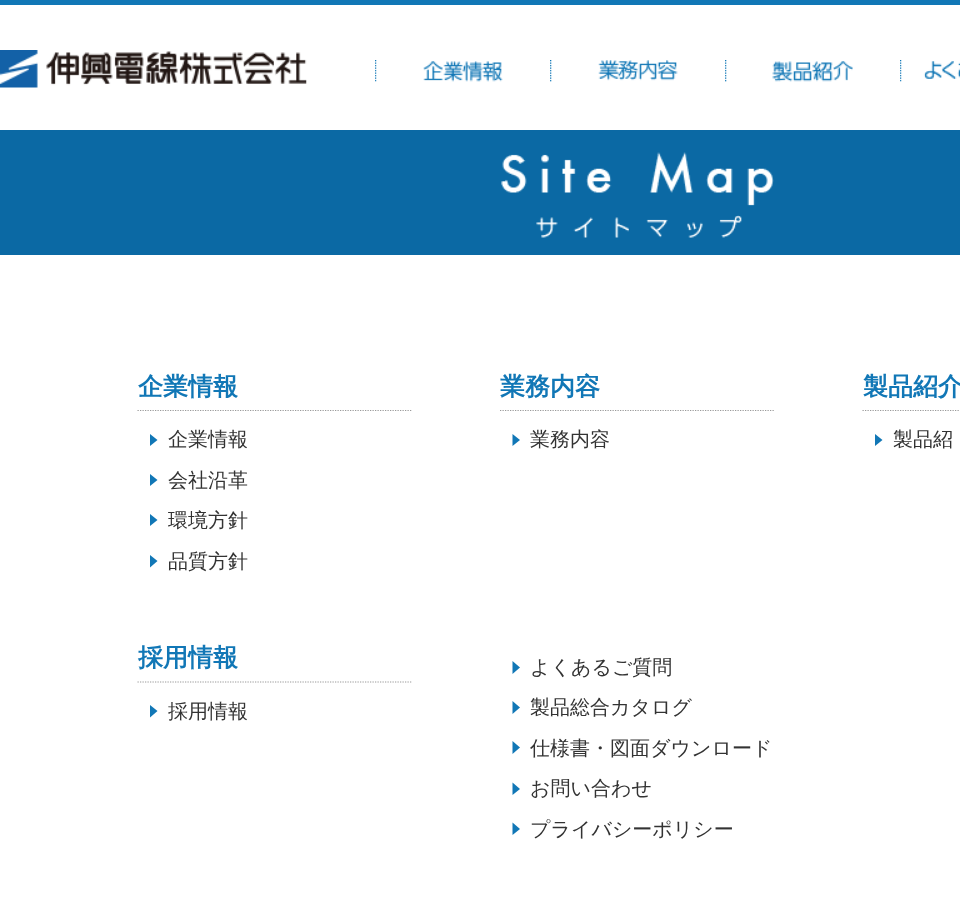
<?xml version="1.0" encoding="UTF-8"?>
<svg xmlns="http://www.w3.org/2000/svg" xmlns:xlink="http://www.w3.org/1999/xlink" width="960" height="920">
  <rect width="100%" height="100%" fill="#ffffff" />
  <rect width="960" height="5" fill="#1177b6" />
  <image x="0" y="50" width="307" height="38" xlink:href="image1.png" />
  <image x="375" y="60" width="2" height="22" xlink:href="image2.png" />
  <image x="423" y="61" width="80" height="21" xlink:href="image3.png" />
  <image x="550" y="60" width="2" height="22" xlink:href="image4.png" />
  <image x="598" y="60" width="80" height="21" xlink:href="image5.png" />
  <image x="725" y="60" width="2" height="22" xlink:href="image4.png" />
  <image x="772" y="61" width="81" height="21" xlink:href="image6.png" />
  <image x="900" y="60" width="2" height="22" xlink:href="image2.png" />
  <image x="923" y="61" width="37" height="18" xlink:href="image7.png" />
  <rect y="130" width="960" height="125" fill="#0b69a4" />
  <image x="501" y="152" width="273" height="86" xlink:href="image8.png" />
  <path d="M 137.5 410.5 h 275" fill="none" stroke="#999999" stroke-width="1.2" stroke-dasharray="1.25 1.25" />
  <path d="M 150 446 v -12 l 7.5 6 z" fill="#1177b6" />
  <path d="M 150 486 v -12 l 7.5 6 z" fill="#1177b6" />
  <path d="M 150 526 v -12 l 7.5 6 z" fill="#1177b6" />
  <path d="M 150 567.5 v -12.5 l 7.5 6 z" fill="#1177b6" />
  <path d="M 500 410.5 h 275" fill="none" stroke="#999999" stroke-width="1.2" stroke-dasharray="1.25 1.25" />
  <path d="M 512.5 446 v -12 l 7.5 6 z" fill="#1177b6" />
  <path d="M 862.5 410.5 h 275" fill="none" stroke="#999999" stroke-width="1.2" stroke-dasharray="1.25 1.25" />
  <path d="M 875 446 v -12 l 7.5 6 z" fill="#1177b6" />
  <path d="M 137.5 682 h 275" fill="none" stroke="#999999" stroke-width="1.2" stroke-dasharray="1.25 1.25" />
  <path d="M 150 717.5 v -12.5 l 7.5 6 z" fill="#1177b6" />
  <path d="M 512.5 674 v -13 l 7.5 6.5 z" fill="#1177b6" />
  <path d="M 512.5 714 v -13 l 7.5 6.5 z" fill="#1177b6" />
  <path d="M 512.5 754 v -13 l 7.5 6.5 z" fill="#1177b6" />
  <path d="M 512.5 795 v -12.5 l 7.5 6.5 z" fill="#1177b6" />
  <path d="M 512.5 835 v -12.5 l 7.5 6.5 z" fill="#1177b6" />
  <text x="138" y="395" style="font-family: WenQuanYi Zen Hei; font-size: 25px; font-weight: bold; fill: #1177b6">企業情報</text>
  <text x="168" y="446" style="font-family: WenQuanYi Zen Hei; font-size: 20px; font-weight: 500; fill: #333333">企業情報</text>
  <text x="168" y="487" style="font-family: WenQuanYi Zen Hei; font-size: 20px; font-weight: 500; fill: #333333">会社沿革</text>
  <text x="168" y="527" style="font-family: WenQuanYi Zen Hei; font-size: 20px; font-weight: 500; fill: #333333">環境方針</text>
  <text x="168" y="568" style="font-family: WenQuanYi Zen Hei; font-size: 20px; font-weight: 500; fill: #333333">品質方針</text>
  <text x="500" y="395" style="font-family: WenQuanYi Zen Hei; font-size: 25px; font-weight: bold; fill: #1177b6">業務内容</text>
  <text x="530" y="446" style="font-family: WenQuanYi Zen Hei; font-size: 20px; font-weight: 500; fill: #333333">業務内容</text>
  <text x="863" y="395" style="font-family: WenQuanYi Zen Hei; font-size: 25px; font-weight: bold; fill: #1177b6">製品紹介</text>
  <text x="893" y="446" style="font-family: WenQuanYi Zen Hei; font-size: 20px; font-weight: 500; fill: #333333">製品紹</text>
  <text x="138" y="666" style="font-family: WenQuanYi Zen Hei; font-size: 25px; font-weight: bold; fill: #1177b6">採用情報</text>
  <text x="168" y="718" style="font-family: WenQuanYi Zen Hei; font-size: 20px; font-weight: 500; fill: #333333">採用情報</text>
  <text x="530" y="674" style="font-family: WenQuanYi Zen Hei; font-size: 20px; font-weight: 500; fill: #333333">よくあるご質問</text>
  <text x="530" y="714" style="font-family: WenQuanYi Zen Hei; font-size: 20px; font-weight: 500; fill: #333333">製品総合カタログ</text>
  <text x="530" y="755" style="font-family: WenQuanYi Zen Hei; font-size: 20px; font-weight: 500; fill: #333333">仕様書・図面ダウンロード</text>
  <text x="530" y="795" style="font-family: WenQuanYi Zen Hei; font-size: 20px; font-weight: 500; fill: #333333">お問い合わせ</text>
  <text x="530" y="836" style="font-family: WenQuanYi Zen Hei; font-size: 20px; font-weight: 500; fill: #333333">プライバシーポリシー</text>
</svg>
